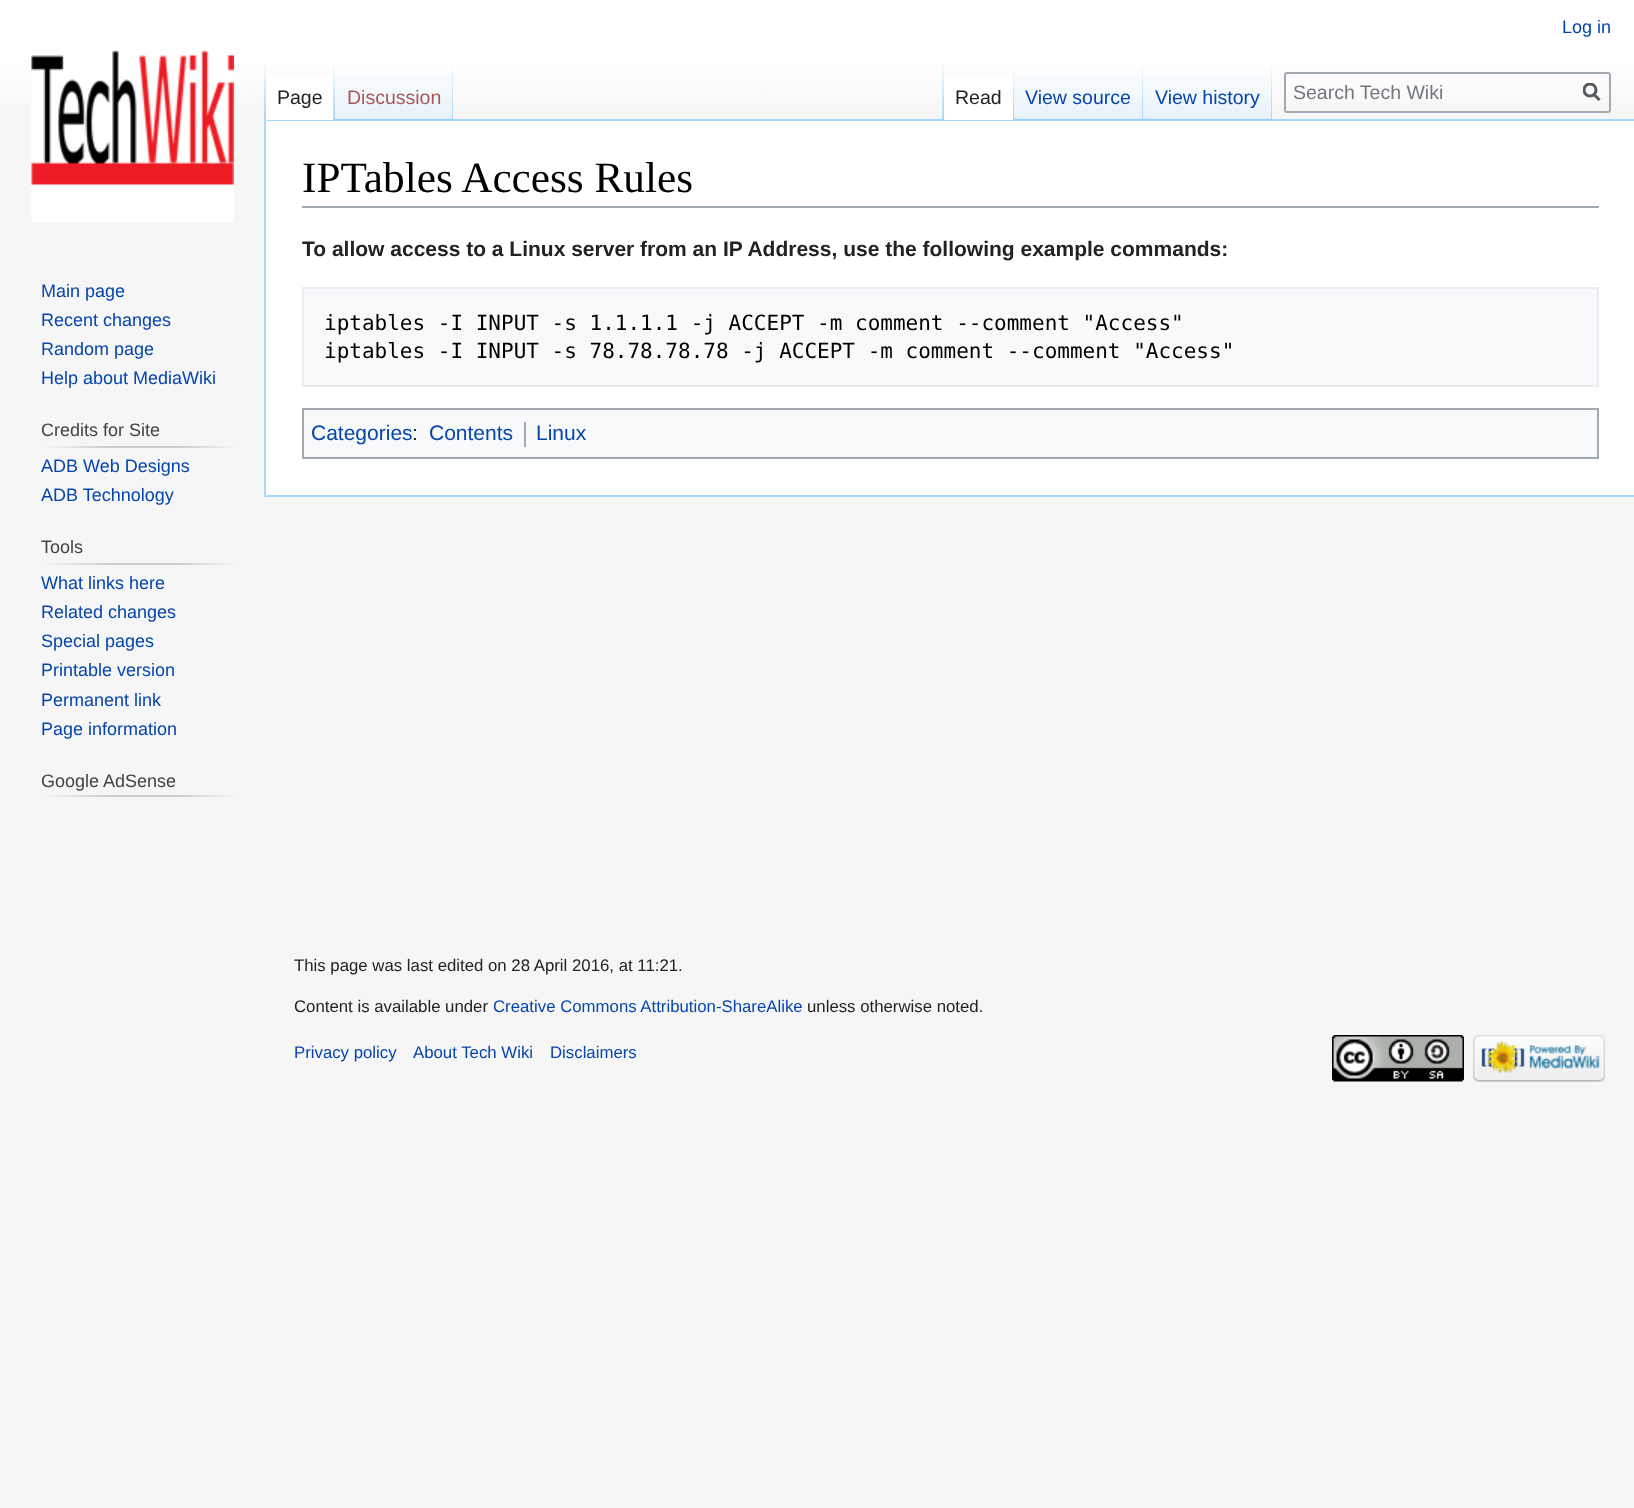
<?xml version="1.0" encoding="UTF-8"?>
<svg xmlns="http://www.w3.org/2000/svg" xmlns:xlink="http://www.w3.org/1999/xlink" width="1634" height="1508">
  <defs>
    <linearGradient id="g1" gradientUnits="userSpaceOnUse" x1="818" y1="0" x2="818" y2="120"><stop offset="0.5" stop-color="#ffffff" /><stop offset="1" stop-color="#f6f6f6" /></linearGradient>
    <linearGradient id="g2" gradientUnits="userSpaceOnUse" x1="265" y1="60" x2="265" y2="120"><stop offset="0" stop-color="#a7d7f9" stop-opacity="0" /><stop offset="1" stop-color="#a7d7f9" /></linearGradient>
    <linearGradient id="g3" gradientUnits="userSpaceOnUse" x1="334" y1="60" x2="334" y2="120"><stop offset="0" stop-color="#ffffff" /><stop offset="1" stop-color="#a7d7f9" /></linearGradient>
    <linearGradient id="g4" gradientUnits="userSpaceOnUse" x1="394" y1="120" x2="394" y2="60"><stop offset="0" stop-color="#77c1f6" /><stop offset="0.03" stop-color="#e8f2f8" /><stop offset="1" stop-color="#ffffff" /></linearGradient>
    <linearGradient id="g5" gradientUnits="userSpaceOnUse" x1="452" y1="60" x2="452" y2="120"><stop offset="0" stop-color="#a7d7f9" stop-opacity="0" /><stop offset="1" stop-color="#a7d7f9" /></linearGradient>
    <linearGradient id="g6" gradientUnits="userSpaceOnUse" x1="943" y1="60" x2="943" y2="120"><stop offset="0" stop-color="#a7d7f9" stop-opacity="0" /><stop offset="1" stop-color="#a7d7f9" /></linearGradient>
    <linearGradient id="g7" gradientUnits="userSpaceOnUse" x1="1013" y1="60" x2="1013" y2="120"><stop offset="0" stop-color="#ffffff" /><stop offset="1" stop-color="#a7d7f9" /></linearGradient>
    <linearGradient id="g8" gradientUnits="userSpaceOnUse" x1="1079" y1="120" x2="1079" y2="60"><stop offset="0" stop-color="#77c1f6" /><stop offset="0.03" stop-color="#e8f2f8" /><stop offset="1" stop-color="#ffffff" /></linearGradient>
    <linearGradient id="g9" gradientUnits="userSpaceOnUse" x1="1142" y1="60" x2="1142" y2="120"><stop offset="0" stop-color="#a7d7f9" stop-opacity="0" /><stop offset="1" stop-color="#a7d7f9" /></linearGradient>
    <linearGradient id="g10" gradientUnits="userSpaceOnUse" x1="1208" y1="120" x2="1208" y2="60"><stop offset="0" stop-color="#77c1f6" /><stop offset="0.03" stop-color="#e8f2f8" /><stop offset="1" stop-color="#ffffff" /></linearGradient>
    <linearGradient id="g11" gradientUnits="userSpaceOnUse" x1="1271" y1="60" x2="1271" y2="120"><stop offset="0" stop-color="#a7d7f9" stop-opacity="0" /><stop offset="1" stop-color="#a7d7f9" /></linearGradient>
    <clipPath id="clip1"><rect x="1583" y="83" width="18" height="19" /></clipPath>
    <linearGradient id="g12" gradientUnits="userSpaceOnUse" x1="41" y1="446" x2="237" y2="446"><stop offset="0" stop-color="#f6f6f6" /><stop offset="0.35" stop-color="#c8ccd1" /><stop offset="0.7" stop-color="#c8ccd1" /><stop offset="1" stop-color="#f6f6f6" /></linearGradient>
    <linearGradient id="g13" gradientUnits="userSpaceOnUse" x1="41" y1="563" x2="237" y2="563"><stop offset="0" stop-color="#f6f6f6" /><stop offset="0.35" stop-color="#c8ccd1" /><stop offset="0.7" stop-color="#c8ccd1" /><stop offset="1" stop-color="#f6f6f6" /></linearGradient>
    <linearGradient id="g14" gradientUnits="userSpaceOnUse" x1="41" y1="796" x2="237" y2="796"><stop offset="0" stop-color="#f6f6f6" /><stop offset="0.35" stop-color="#c8ccd1" /><stop offset="0.7" stop-color="#c8ccd1" /><stop offset="1" stop-color="#f6f6f6" /></linearGradient>
  </defs>
  <rect width="100%" height="100%" fill="#f6f6f6" />
  <rect width="1634" height="103" fill="url(#g1)" />
  <rect x="264" y="119" width="1370" height="2" fill="#a7d7f9" />
  <rect x="264" y="495" width="1370" height="2" fill="#a7d7f9" />
  <rect x="264" y="119" width="2" height="378" fill="#a7d7f9" />
  <rect x="264" y="60" width="2" height="60" fill="url(#g2)" />
  <rect x="266" y="77" width="67" height="43" fill="#ffffff" />
  <rect x="333" y="60" width="2" height="60" fill="url(#g3)" />
  <rect x="335" y="69" width="118" height="51" fill="url(#g4)" />
  <rect x="452" y="60" width="1" height="60" fill="url(#g5)" />
  <rect x="942" y="60" width="2" height="60" fill="url(#g6)" />
  <rect x="944" y="77" width="69" height="43" fill="#ffffff" />
  <rect x="1013" y="60" width="1" height="60" fill="url(#g7)" />
  <rect x="1014" y="69" width="129" height="51" fill="url(#g8)" />
  <rect x="1142" y="60" width="1" height="60" fill="url(#g9)" />
  <rect x="1143" y="69" width="129" height="51" fill="url(#g10)" />
  <rect x="1271" y="60" width="1" height="60" fill="url(#g11)" />
  <rect x="1285" y="73" width="325" height="39" rx="2" fill="none" stroke="#a2a9b1" stroke-width="2" />
  <path d="M 1599.5 100 l -6 -6" fill="none" stroke="#54595d" stroke-width="3" />
  <g clip-path="url(#clip1)">
    <circle cx="1590" cy="90" r="6" fill="none" stroke="#54595d" stroke-width="3" />
  </g>
  <image x="31" y="50" width="203" height="172" xlink:href="image1.png" />
  <rect x="41" y="446" width="196" height="2" fill="url(#g12)" />
  <rect x="41" y="563" width="196" height="2" fill="url(#g13)" />
  <rect x="41" y="795" width="196" height="2" fill="url(#g14)" />
  <rect x="266" y="121" width="1368" height="374" fill="#ffffff" />
  <rect x="302" y="206" width="1297" height="2" fill="#a2a9b1" />
  <rect x="303" y="288" width="1295" height="98" fill="#f8f9fa" stroke="#eaecf0" stroke-width="2" />
  <rect x="303" y="409" width="1295" height="49" fill="#f8f9fa" stroke="#a2a9b1" stroke-width="2" />
  <rect x="524" y="422" width="2" height="25" fill="#a2a9b1" />
  <image x="1332" y="1035" width="132" height="47" xlink:href="image2.png" />
  <image x="1473" y="1035" width="132" height="47" xlink:href="image3.png" />
  <text x="1562" y="33" style="font-family: Liberation Sans; font-size: 18px; fill: #0645ad">Log in</text>
  <text x="277" y="104" style="font-family: Liberation Sans; font-size: 19.5px; fill: #222222">Page</text>
  <text x="347" y="104" style="font-family: Liberation Sans; font-size: 19.5px; fill: #a55858">Discussion</text>
  <text x="955" y="104" style="font-family: Liberation Sans; font-size: 19.5px; fill: #222222">Read</text>
  <text x="1025" y="104" style="font-family: Liberation Sans; font-size: 19.5px; fill: #0645ad">View source</text>
  <text x="1155" y="104" style="font-family: Liberation Sans; font-size: 19.5px; fill: #0645ad">View history</text>
  <text x="1293" y="99" style="font-family: Liberation Sans; font-size: 19.5px; fill: #72777d">Search Tech Wiki</text>
  <text x="41" y="297" style="font-family: Liberation Sans; font-size: 18px; fill: #0645ad">Main page</text>
  <text x="41" y="326" style="font-family: Liberation Sans; font-size: 18px; fill: #0645ad">Recent changes</text>
  <text x="41" y="355" style="font-family: Liberation Sans; font-size: 18px; fill: #0645ad">Random page</text>
  <text x="41" y="384" style="font-family: Liberation Sans; font-size: 18px; fill: #0645ad">Help about MediaWiki</text>
  <text x="41" y="436" style="font-family: Liberation Sans; font-size: 18px; fill: #444444">Credits for Site</text>
  <text x="41" y="472" style="font-family: Liberation Sans; font-size: 18px; fill: #0645ad">ADB Web Designs</text>
  <text x="41" y="501" style="font-family: Liberation Sans; font-size: 18px; fill: #0645ad">ADB Technology</text>
  <text x="41" y="553" style="font-family: Liberation Sans; font-size: 18px; fill: #444444">Tools</text>
  <text x="41" y="589" style="font-family: Liberation Sans; font-size: 18px; fill: #0645ad">What links here</text>
  <text x="41" y="618" style="font-family: Liberation Sans; font-size: 18px; fill: #0645ad">Related changes</text>
  <text x="41" y="647" style="font-family: Liberation Sans; font-size: 18px; fill: #0645ad">Special pages</text>
  <text x="41" y="676" style="font-family: Liberation Sans; font-size: 18px; fill: #0645ad">Printable version</text>
  <text x="41" y="706" style="font-family: Liberation Sans; font-size: 18px; fill: #0645ad">Permanent link</text>
  <text x="41" y="735" style="font-family: Liberation Sans; font-size: 18px; fill: #0645ad">Page information</text>
  <text x="41" y="787" style="font-family: Liberation Sans; font-size: 18px; fill: #444444">Google AdSense</text>
  <text x="302" y="192" style="font-family: Liberation Serif; font-size: 43.25px; fill: #000000">IPTables Access Rules</text>
  <text x="302" y="256" style="font-family: Liberation Sans; font-size: 21px; font-weight: bold; fill: #222222">To allow access to a Linux server from an IP Address, use the following example commands:</text>
  <text x="324" y="330" style="font-family: DejaVu Sans Mono; font-size: 21px; fill: #000000">iptables -I INPUT -s 1.1.1.1 -j ACCEPT -m comment --comment "Access"</text>
  <text x="324" y="358" style="font-family: DejaVu Sans Mono; font-size: 21px; fill: #000000">iptables -I INPUT -s 78.78.78.78 -j ACCEPT -m comment --comment "Access"</text>
  <text x="311" y="440" style="font-family: Liberation Sans; font-size: 21px; fill: #0645ad">Categories</text>
  <text x="412" y="440" style="font-family: Liberation Sans; font-size: 21px; fill: #222222">:</text>
  <text x="429" y="440" style="font-family: Liberation Sans; font-size: 21px; fill: #0645ad">Contents</text>
  <text x="536" y="440" style="font-family: Liberation Sans; font-size: 21px; fill: #0645ad">Linux</text>
  <text x="294" y="971" style="font-family: Liberation Sans; font-size: 16.8px; fill: #222222">This page was last edited on 28 April 2016, at 11:21.</text>
  <text x="294" y="1012" style="font-family: Liberation Sans; font-size: 16.8px; fill: #222222">Content is available under</text>
  <text x="493" y="1012" style="font-family: Liberation Sans; font-size: 16.8px; fill: #0645ad">Creative Commons Attribution-ShareAlike</text>
  <text x="807" y="1012" style="font-family: Liberation Sans; font-size: 16.8px; fill: #222222">unless otherwise noted.</text>
  <text x="294" y="1058" style="font-family: Liberation Sans; font-size: 16.8px; fill: #0645ad">Privacy policy</text>
  <text x="413" y="1058" style="font-family: Liberation Sans; font-size: 16.8px; fill: #0645ad">About Tech Wiki</text>
  <text x="550" y="1058" style="font-family: Liberation Sans; font-size: 16.8px; fill: #0645ad">Disclaimers</text>
</svg>
